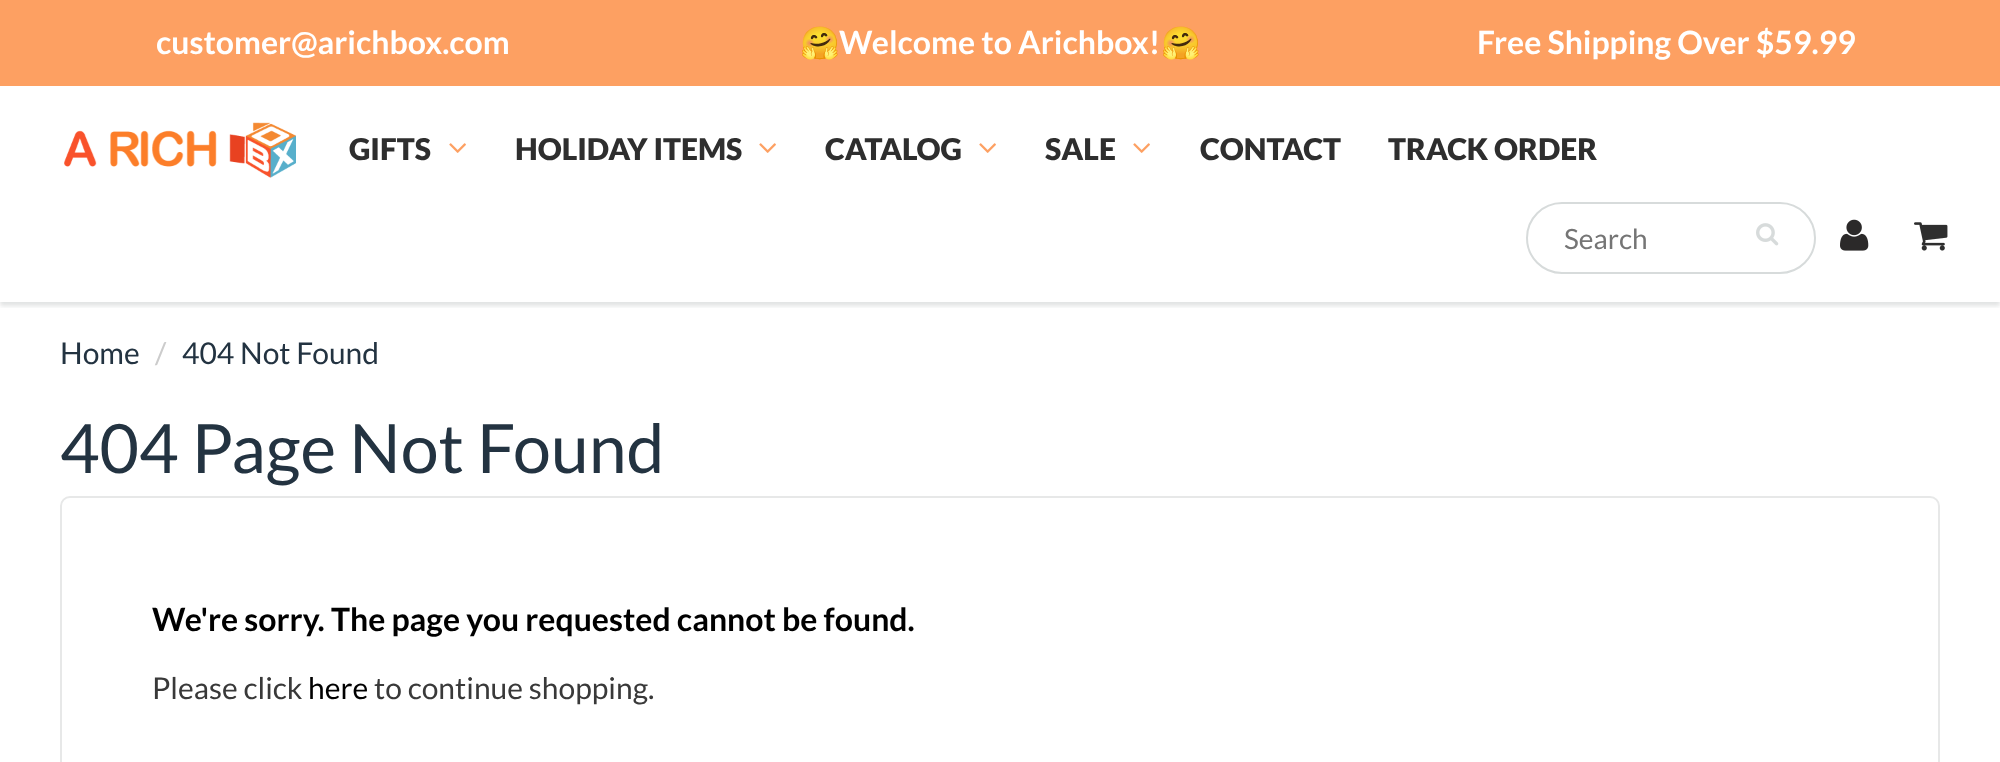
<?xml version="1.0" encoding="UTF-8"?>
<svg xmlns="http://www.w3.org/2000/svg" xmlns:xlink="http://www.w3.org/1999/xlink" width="2000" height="762">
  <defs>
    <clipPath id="clip1"><rect x="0" y="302" width="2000" height="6" /></clipPath>
  </defs>
  <rect width="100%" height="100%" fill="#ffffff" />
  <rect width="2000" height="86" fill="#fda062" />
  <g clip-path="url(#clip1)">
    <rect y="90" width="2000" height="216" fill="#0b191c" fill-opacity="0.12" filter="blur(2px)" />
  </g>
  <image x="64" y="122" width="232" height="56" xlink:href="image1.png" />
  <image x="449" y="143" width="17" height="10" xlink:href="image2.png" />
  <image x="759" y="143" width="17" height="10" xlink:href="image2.png" />
  <image x="979" y="143" width="17" height="10" xlink:href="image2.png" />
  <image x="1133" y="143" width="17" height="10" xlink:href="image2.png" />
  <rect x="1527" y="203" width="288" height="70" rx="35" fill="none" stroke="#d7dbdb" stroke-width="2" />
  <image x="1756" y="223" width="23" height="23" xlink:href="image3.png" />
  <image x="1840" y="219" width="29" height="32" xlink:href="image4.png" />
  <image x="1914" y="222" width="34" height="29" xlink:href="image5.png" />
  <rect x="61" y="497" width="1878" height="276" rx="9" fill="none" stroke="#e7e8e8" stroke-width="2" />
  <text x="156" y="54" style="font-family: Lato; font-size: 32px; font-weight: bold; fill: #ffffff">customer@arichbox.com</text>
  <text x="800" y="54" style="font-family: Noto Color Emoji; font-size: 32px; fill: #ffffff">🤗</text>
  <text x="839" y="54" style="font-family: Lato; font-size: 32px; font-weight: bold; fill: #ffffff">Welcome to Arichbox!</text>
  <text x="1161" y="54" style="font-family: Noto Color Emoji; font-size: 32px; fill: #ffffff">🤗</text>
  <text x="1477" y="54" style="font-family: Lato; font-size: 32px; font-weight: bold; fill: #ffffff">Free Shipping Over $59.99</text>
  <text x="349" y="160" style="font-family: Lato; font-size: 30px; font-weight: 900; fill: #2e2e2e">GIFTS</text>
  <text x="515" y="160" style="font-family: Lato; font-size: 30px; font-weight: 900; fill: #2e2e2e">HOLIDAY ITEMS</text>
  <text x="825" y="160" style="font-family: Lato; font-size: 30px; font-weight: 900; fill: #2e2e2e">CATALOG</text>
  <text x="1045" y="160" style="font-family: Lato; font-size: 30px; font-weight: 900; fill: #2e2e2e">SALE</text>
  <text x="1200" y="160" style="font-family: Lato; font-size: 30px; font-weight: 900; fill: #2e2e2e">CONTACT</text>
  <text x="1388" y="160" style="font-family: Lato; font-size: 30px; font-weight: 900; fill: #2e2e2e">TRACK ORDER</text>
  <text x="1564" y="249" style="font-family: Lato; font-size: 28px; fill: #757575">Search</text>
  <text x="60" y="364" style="font-family: Lato; font-size: 30px; fill: #233341">Home</text>
  <text x="155" y="364" style="font-family: Lato; font-size: 30px; fill: #cccccc">/</text>
  <text x="182" y="364" style="font-family: Lato; font-size: 30px; fill: #233341">404 Not Found</text>
  <text x="60" y="473" style="font-family: Lato; font-size: 68px; fill: #233341">404 Page Not Found</text>
  <text x="152" y="631" style="font-family: Lato; font-size: 32px; font-weight: bold; fill: #000000">We're sorry. The page you requested cannot be found.</text>
  <text x="152" y="699" style="font-family: Lato; font-size: 30px; fill: #393939">Please click</text>
  <text x="308" y="699" style="font-family: Lato; font-size: 30px; fill: #000000">here</text>
  <text x="374" y="699" style="font-family: Lato; font-size: 30px; fill: #393939">to continue shopping.</text>
</svg>
